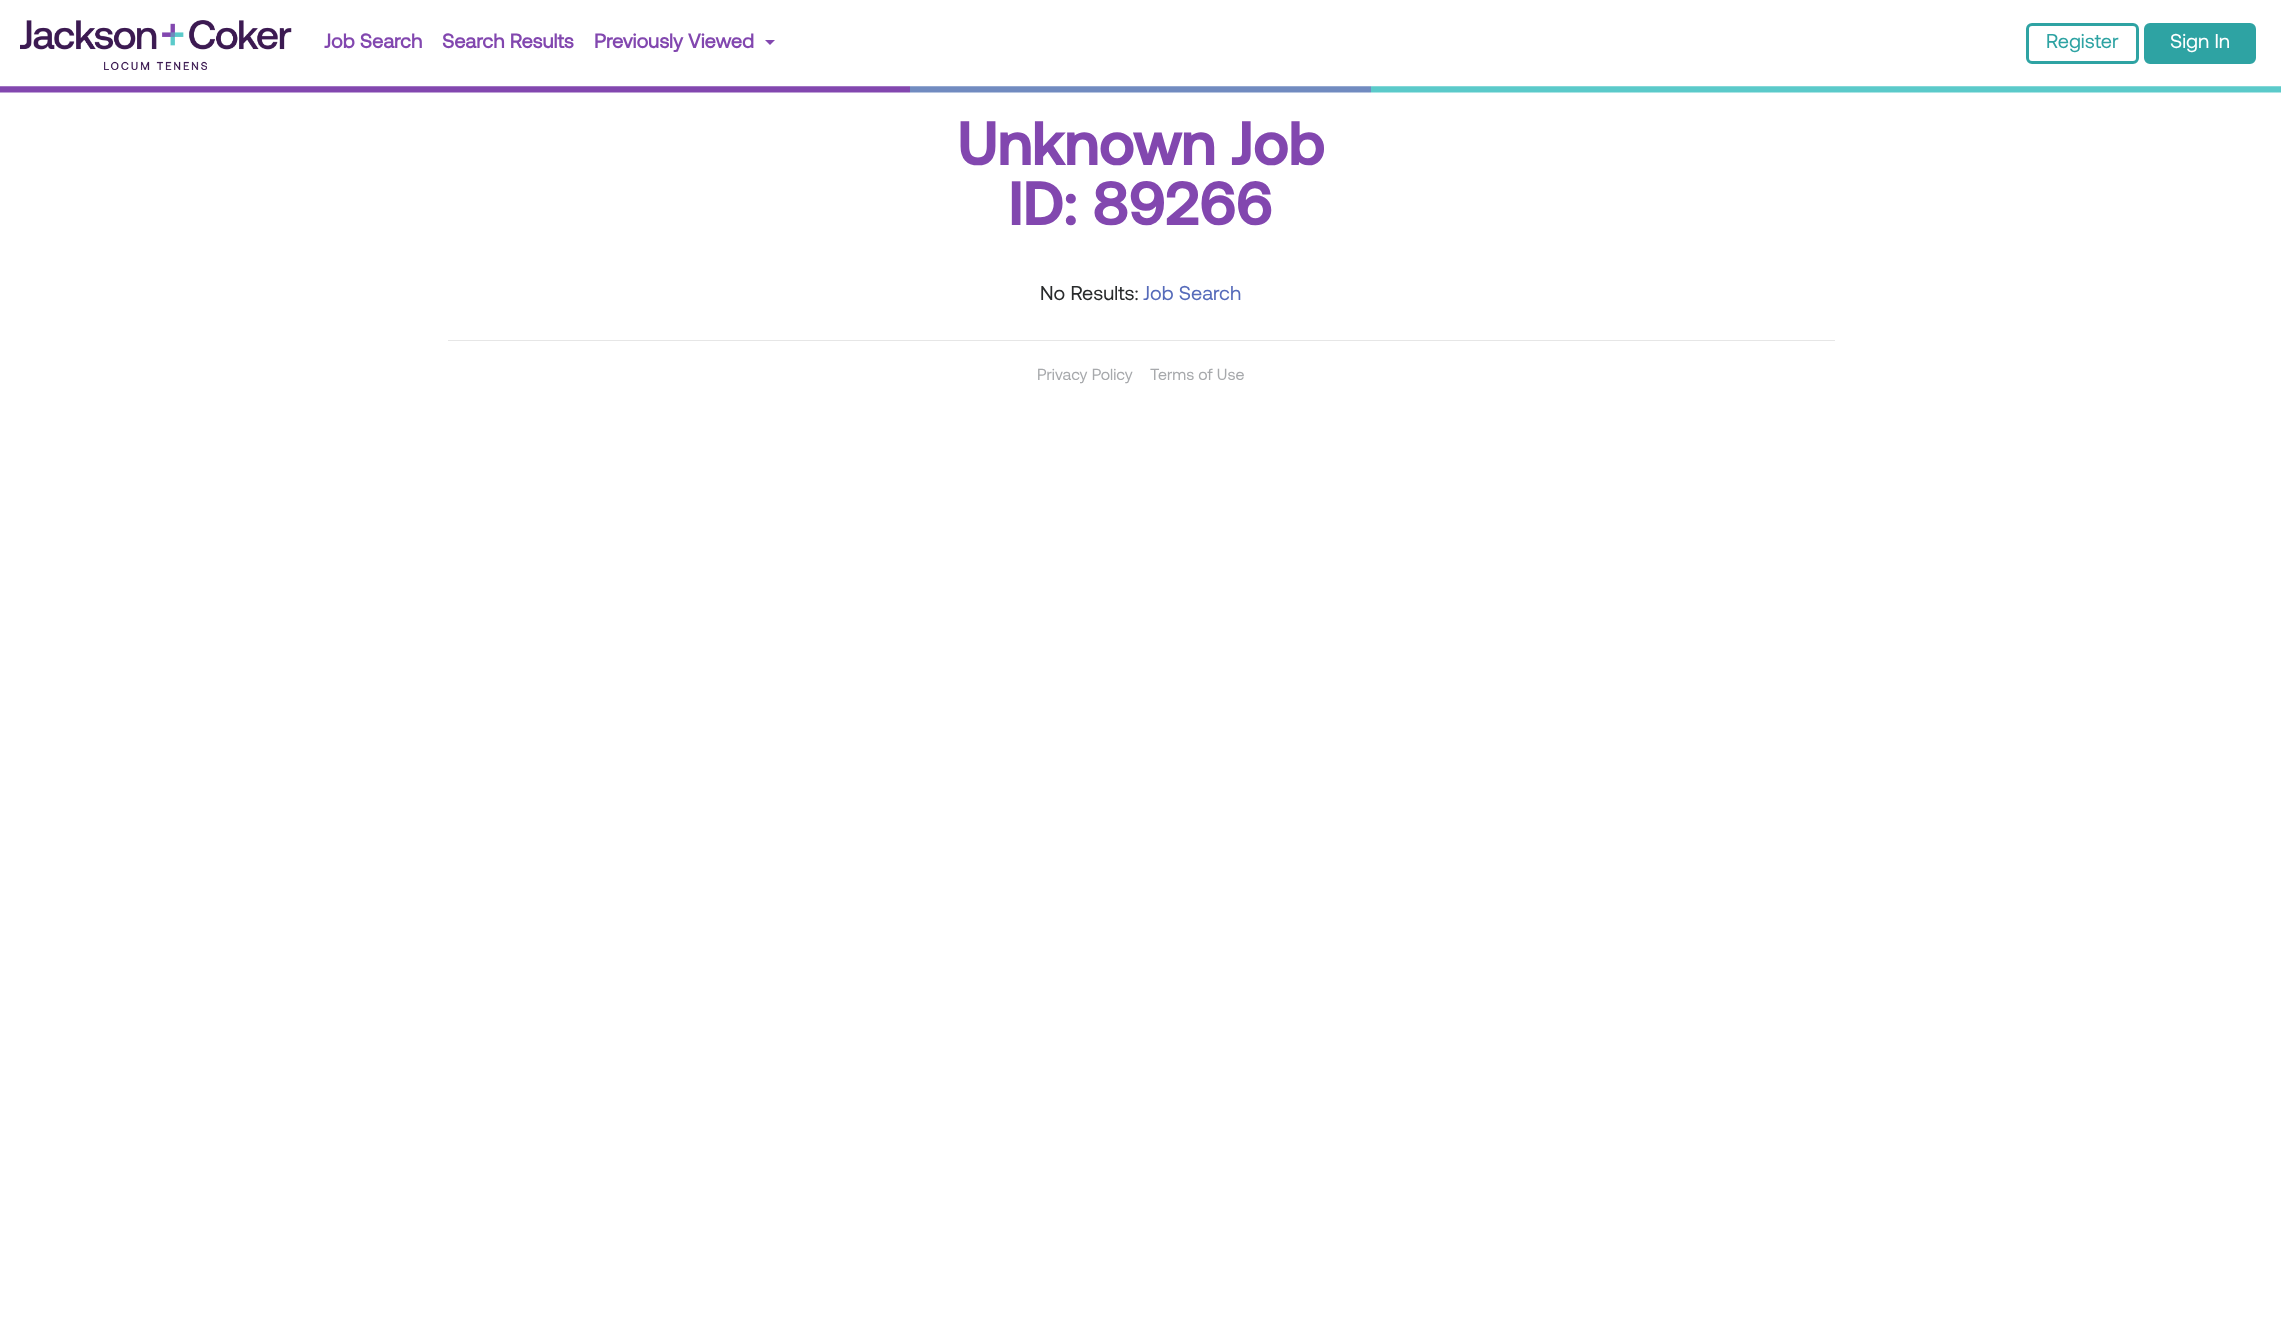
<?xml version="1.0" encoding="UTF-8"?>
<svg xmlns="http://www.w3.org/2000/svg" xmlns:xlink="http://www.w3.org/1999/xlink" width="2281" height="1334">
  <rect width="100%" height="100%" fill="#ffffff" />
  <image x="0" y="86" width="2281" height="7" xlink:href="image1.png" />
  <image x="20" y="20" width="272" height="50" xlink:href="image2.png" />
  <path d="M 765 40 h 10 l -5 5 z" fill="#8247af" />
  <rect x="2027.5" y="24.5" width="110" height="38" rx="4.5" fill="none" stroke="#2ea3a3" stroke-width="3" />
  <rect x="2145.5" y="24.5" width="109" height="38" rx="4.5" fill="#2ea3a3" stroke="#2ea3a3" stroke-width="3" />
  <rect x="448" y="340" width="1387" height="1" fill="#e6e6e6" />
  <text x="324" y="48" style="font-family: 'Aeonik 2'; font-size: 20px; font-weight: bold; fill: #8247af">Job Search</text>
  <text x="442" y="48" style="font-family: 'Aeonik 2'; font-size: 20px; font-weight: bold; fill: #8247af">Search Results</text>
  <text x="594" y="48" style="font-family: 'Aeonik 2'; font-size: 20px; font-weight: bold; fill: #8247af">Previously Viewed</text>
  <text x="2046" y="48" style="font-family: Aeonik; font-size: 20px; fill: #2ea3a3">Register</text>
  <text x="2170" y="48" style="font-family: Aeonik; font-size: 20px; fill: #ffffff">Sign In</text>
  <text x="957" y="165" style="font-family: Aeonik; font-size: 60px; font-weight: bold; fill: #8247af">Unknown Job</text>
  <text x="1008" y="225" style="font-family: Aeonik; font-size: 60px; font-weight: bold; fill: #8247af">ID: 89266</text>
  <text x="1040" y="300" style="font-family: Aeonik; font-size: 20px; fill: #292b2c">No Results:</text>
  <text x="1143" y="300" style="font-family: Aeonik; font-size: 20px; fill: #566bba">Job Search</text>
  <text x="1037" y="380" style="font-family: Aeonik; font-size: 16px; fill: #a7a9ac">Privacy Policy</text>
  <text x="1150" y="380" style="font-family: Aeonik; font-size: 16px; fill: #a7a9ac">Terms of Use</text>
</svg>
